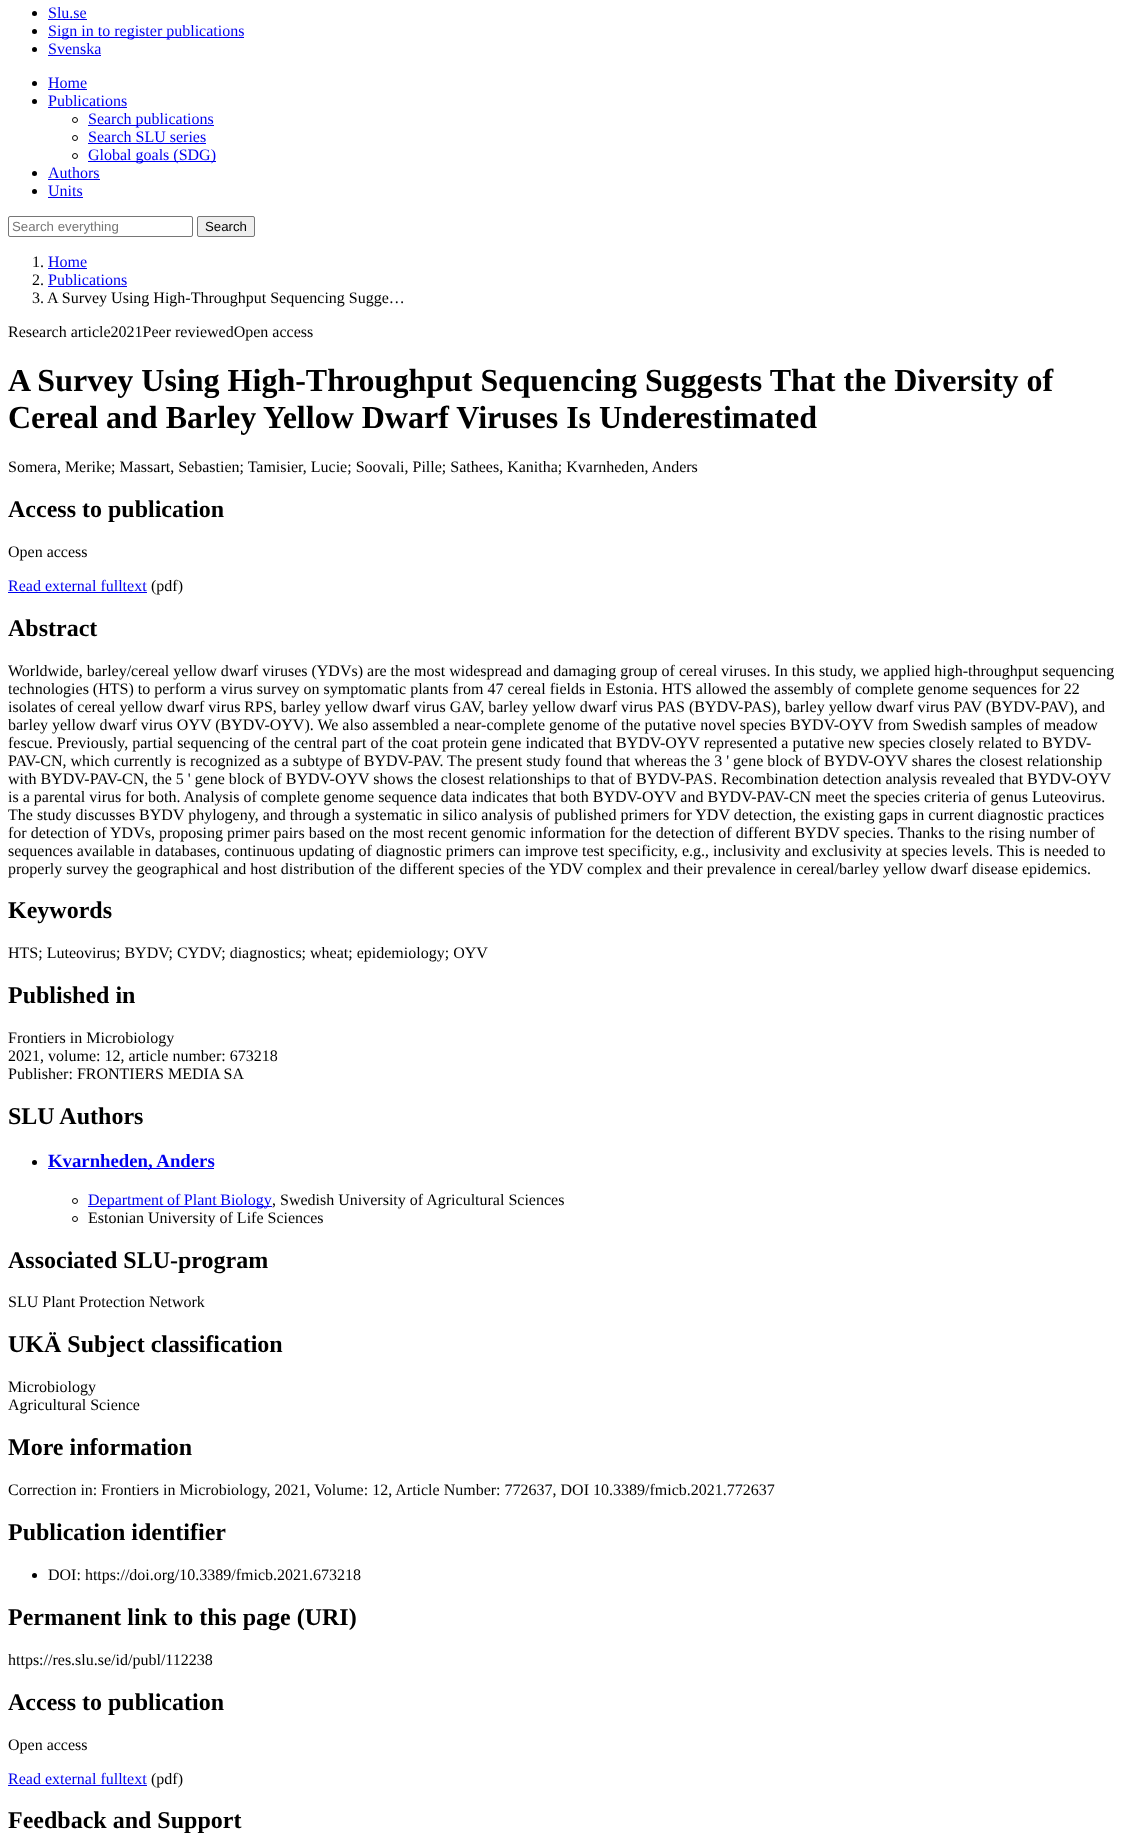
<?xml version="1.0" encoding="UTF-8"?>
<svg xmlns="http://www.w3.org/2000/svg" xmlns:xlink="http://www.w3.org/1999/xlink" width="1126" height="1846">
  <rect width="100%" height="100%" fill="#ffffff" />
  <circle cx="34.5" cy="13.5" r="2.5" fill="#000000" />
  <rect x="48" y="19" width="39" height="1" fill="#0000ee" />
  <circle cx="34.5" cy="31.5" r="2.5" fill="#000000" />
  <rect x="48" y="37" width="196" height="1" fill="#0000ee" />
  <circle cx="34.5" cy="49.5" r="2.5" fill="#000000" />
  <rect x="48" y="55" width="53" height="1" fill="#0000ee" />
  <circle cx="34.5" cy="83.5" r="2.5" fill="#000000" />
  <rect x="48" y="89" width="39" height="1" fill="#0000ee" />
  <circle cx="34.5" cy="101.5" r="2.5" fill="#000000" />
  <rect x="48" y="107" width="79" height="1" fill="#0000ee" />
  <circle cx="75" cy="120" r="2.5" fill="none" stroke="#000000" />
  <rect x="88" y="125" width="126" height="1" fill="#0000ee" />
  <circle cx="75" cy="138" r="2.5" fill="none" stroke="#000000" />
  <rect x="88" y="143" width="118" height="1" fill="#0000ee" />
  <circle cx="75" cy="156" r="2.5" fill="none" stroke="#000000" />
  <rect x="88" y="161" width="128" height="1" fill="#0000ee" />
  <circle cx="34.5" cy="173.5" r="2.5" fill="#000000" />
  <rect x="48" y="179" width="52" height="1" fill="#0000ee" />
  <circle cx="34.5" cy="191.5" r="2.5" fill="#000000" />
  <rect x="48" y="197" width="35" height="1" fill="#0000ee" />
  <rect x="8.5" y="216.5" width="184" height="20" rx="1.5" fill="none" stroke="#767676" />
  <rect x="197.5" y="216.5" width="57" height="20" rx="1.5" fill="#efefef" stroke="#767676" />
  <rect x="48" y="268" width="39" height="1" fill="#0000ee" />
  <rect x="48" y="286" width="79" height="1" fill="#0000ee" />
  <rect x="8" y="592" width="139" height="1" fill="#0000ee" />
  <circle cx="34.5" cy="1162.5" r="2.5" fill="#000000" />
  <rect x="48" y="1168" width="166" height="1" fill="#0000ee" />
  <circle cx="75" cy="1201" r="2.5" fill="none" stroke="#000000" />
  <rect x="88" y="1206" width="184" height="1" fill="#0000ee" />
  <circle cx="75" cy="1219" r="2.5" fill="none" stroke="#000000" />
  <circle cx="34.5" cy="1575.5" r="2.5" fill="#000000" />
  <rect x="8" y="1785" width="139" height="1" fill="#0000ee" />
  <text x="48" y="18" style="font-family: Liberation Serif; font-size: 16px; fill: #0000ee">Slu.se</text>
  <text x="48" y="36" style="font-family: Liberation Serif; font-size: 16px; fill: #0000ee">Sign in to register publications</text>
  <text x="48" y="54" style="font-family: Liberation Serif; font-size: 16px; fill: #0000ee">Svenska</text>
  <text x="48" y="88" style="font-family: Liberation Serif; font-size: 16px; fill: #0000ee">Home</text>
  <text x="48" y="106" style="font-family: Liberation Serif; font-size: 16px; fill: #0000ee">Publications</text>
  <text x="88" y="124" style="font-family: Liberation Serif; font-size: 16px; fill: #0000ee">Search publications</text>
  <text x="88" y="142" style="font-family: Liberation Serif; font-size: 16px; fill: #0000ee">Search SLU series</text>
  <text x="88" y="160" style="font-family: Liberation Serif; font-size: 16px; fill: #0000ee">Global goals (SDG)</text>
  <text x="48" y="178" style="font-family: Liberation Serif; font-size: 16px; fill: #0000ee">Authors</text>
  <text x="48" y="196" style="font-family: Liberation Serif; font-size: 16px; fill: #0000ee">Units</text>
  <text x="12" y="231" style="font-family: Liberation Sans; font-size: 13.25px; fill: #757575">Search everything</text>
  <text x="205" y="231" style="font-family: Liberation Sans; font-size: 13.25px; fill: #000000">Search</text>
  <text x="32" y="267" style="font-family: Liberation Serif; font-size: 16px; fill: #000000">1.</text>
  <text x="48" y="267" style="font-family: Liberation Serif; font-size: 16px; fill: #0000ee">Home</text>
  <text x="32" y="285" style="font-family: Liberation Serif; font-size: 16px; fill: #000000">2.</text>
  <text x="48" y="285" style="font-family: Liberation Serif; font-size: 16px; fill: #0000ee">Publications</text>
  <text x="32" y="303" style="font-family: Liberation Serif; font-size: 16px; fill: #000000">3. A Survey Using High-Throughput Sequencing Sugge…</text>
  <text x="8" y="337" style="font-family: Liberation Serif; font-size: 16px; fill: #000000">Research article2021Peer reviewedOpen access</text>
  <text x="8" y="391" style="font-family: Liberation Serif; font-size: 32px; font-weight: bold; fill: #000000">A Survey Using High-Throughput Sequencing Suggests That the Diversity of</text>
  <text x="8" y="428" style="font-family: Liberation Serif; font-size: 32px; font-weight: bold; fill: #000000">Cereal and Barley Yellow Dwarf Viruses Is Underestimated</text>
  <text x="8" y="472" style="font-family: Liberation Serif; font-size: 16px; fill: #000000">Somera, Merike; Massart, Sebastien; Tamisier, Lucie; Soovali, Pille; Sathees, Kanitha; Kvarnheden, Anders</text>
  <text x="8" y="517" style="font-family: Liberation Serif; font-size: 24px; font-weight: bold; fill: #000000">Access to publication</text>
  <text x="8" y="557" style="font-family: Liberation Serif; font-size: 16px; fill: #000000">Open access</text>
  <text x="8" y="591" style="font-family: Liberation Serif; font-size: 16px; fill: #0000ee">Read external fulltext</text>
  <text x="151" y="591" style="font-family: Liberation Serif; font-size: 16px; fill: #000000">(pdf)</text>
  <text x="8" y="636" style="font-family: Liberation Serif; font-size: 24px; font-weight: bold; fill: #000000">Abstract</text>
  <text x="8" y="676" style="font-family: Liberation Serif; font-size: 16px; fill: #000000">Worldwide, barley/cereal yellow dwarf viruses (YDVs) are the most widespread and damaging group of cereal viruses. In this study, we applied high-throughput sequencing</text>
  <text x="8" y="694" style="font-family: Liberation Serif; font-size: 16px; fill: #000000">technologies (HTS) to perform a virus survey on symptomatic plants from 47 cereal fields in Estonia. HTS allowed the assembly of complete genome sequences for 22</text>
  <text x="8" y="712" style="font-family: Liberation Serif; font-size: 16px; fill: #000000">isolates of cereal yellow dwarf virus RPS, barley yellow dwarf virus GAV, barley yellow dwarf virus PAS (BYDV-PAS), barley yellow dwarf virus PAV (BYDV-PAV), and</text>
  <text x="8" y="730" style="font-family: Liberation Serif; font-size: 16px; fill: #000000">barley yellow dwarf virus OYV (BYDV-OYV). We also assembled a near-complete genome of the putative novel species BYDV-OYV from Swedish samples of meadow</text>
  <text x="8" y="748" style="font-family: Liberation Serif; font-size: 16px; fill: #000000">fescue. Previously, partial sequencing of the central part of the coat protein gene indicated that BYDV-OYV represented a putative new species closely related to BYDV-</text>
  <text x="8" y="766" style="font-family: Liberation Serif; font-size: 16px; fill: #000000">PAV-CN, which currently is recognized as a subtype of BYDV-PAV. The present study found that whereas the 3 ' gene block of BYDV-OYV shares the closest relationship</text>
  <text x="8" y="784" style="font-family: Liberation Serif; font-size: 16px; fill: #000000">with BYDV-PAV-CN, the 5 ' gene block of BYDV-OYV shows the closest relationships to that of BYDV-PAS. Recombination detection analysis revealed that BYDV-OYV</text>
  <text x="8" y="802" style="font-family: Liberation Serif; font-size: 16px; fill: #000000">is a parental virus for both. Analysis of complete genome sequence data indicates that both BYDV-OYV and BYDV-PAV-CN meet the species criteria of genus Luteovirus.</text>
  <text x="8" y="820" style="font-family: Liberation Serif; font-size: 16px; fill: #000000">The study discusses BYDV phylogeny, and through a systematic in silico analysis of published primers for YDV detection, the existing gaps in current diagnostic practices</text>
  <text x="8" y="838" style="font-family: Liberation Serif; font-size: 16px; fill: #000000">for detection of YDVs, proposing primer pairs based on the most recent genomic information for the detection of different BYDV species. Thanks to the rising number of</text>
  <text x="8" y="856" style="font-family: Liberation Serif; font-size: 16px; fill: #000000">sequences available in databases, continuous updating of diagnostic primers can improve test specificity, e.g., inclusivity and exclusivity at species levels. This is needed to</text>
  <text x="8" y="874" style="font-family: Liberation Serif; font-size: 16px; fill: #000000">properly survey the geographical and host distribution of the different species of the YDV complex and their prevalence in cereal/barley yellow dwarf disease epidemics.</text>
  <text x="8" y="918" style="font-family: Liberation Serif; font-size: 24px; font-weight: bold; fill: #000000">Keywords</text>
  <text x="8" y="958" style="font-family: Liberation Serif; font-size: 16px; fill: #000000">HTS; Luteovirus; BYDV; CYDV; diagnostics; wheat; epidemiology; OYV</text>
  <text x="8" y="1003" style="font-family: Liberation Serif; font-size: 24px; font-weight: bold; fill: #000000">Published in</text>
  <text x="8" y="1043" style="font-family: Liberation Serif; font-size: 16px; fill: #000000">Frontiers in Microbiology</text>
  <text x="8" y="1061" style="font-family: Liberation Serif; font-size: 16px; fill: #000000">2021, volume: 12, article number: 673218</text>
  <text x="8" y="1079" style="font-family: Liberation Serif; font-size: 16px; fill: #000000">Publisher: FRONTIERS MEDIA SA</text>
  <text x="8" y="1124" style="font-family: Liberation Serif; font-size: 24px; font-weight: bold; fill: #000000">SLU Authors</text>
  <text x="48" y="1167" style="font-family: Liberation Serif; font-size: 18.75px; font-weight: bold; fill: #0000ee">Kvarnheden, Anders</text>
  <text x="88" y="1205" word-spacing="-0.5" style="font-family: Liberation Serif; font-size: 16px; fill: #0000ee">Department of Plant Biology</text>
  <text x="272" y="1205" style="font-family: Liberation Serif; font-size: 16px; fill: #000000">, Swedish University of Agricultural Sciences</text>
  <text x="88" y="1223" style="font-family: Liberation Serif; font-size: 16px; fill: #000000">Estonian University of Life Sciences</text>
  <text x="8" y="1268" style="font-family: Liberation Serif; font-size: 24px; font-weight: bold; fill: #000000">Associated SLU-program</text>
  <text x="8" y="1307" style="font-family: Liberation Serif; font-size: 16px; fill: #000000">SLU Plant Protection Network</text>
  <text x="8" y="1352" style="font-family: Liberation Serif; font-size: 24px; font-weight: bold; fill: #000000">UKÄ Subject classification</text>
  <text x="8" y="1392" style="font-family: Liberation Serif; font-size: 16px; fill: #000000">Microbiology</text>
  <text x="8" y="1410" style="font-family: Liberation Serif; font-size: 16px; fill: #000000">Agricultural Science</text>
  <text x="8" y="1455" style="font-family: Liberation Serif; font-size: 24px; font-weight: bold; fill: #000000">More information</text>
  <text x="8" y="1495" style="font-family: Liberation Serif; font-size: 16px; fill: #000000">Correction in: Frontiers in Microbiology, 2021, Volume: 12, Article Number: 772637, DOI 10.3389/fmicb.2021.772637</text>
  <text x="8" y="1540" style="font-family: Liberation Serif; font-size: 24px; font-weight: bold; fill: #000000">Publication identifier</text>
  <text x="48" y="1580" style="font-family: Liberation Serif; font-size: 16px; fill: #000000">DOI: https://doi.org/10.3389/fmicb.2021.673218</text>
  <text x="8" y="1625" style="font-family: Liberation Serif; font-size: 24px; font-weight: bold; fill: #000000">Permanent link to this page (URI)</text>
  <text x="8" y="1665" style="font-family: Liberation Serif; font-size: 16px; fill: #000000">https://res.slu.se/id/publ/112238</text>
  <text x="8" y="1710" style="font-family: Liberation Serif; font-size: 24px; font-weight: bold; fill: #000000">Access to publication</text>
  <text x="8" y="1750" style="font-family: Liberation Serif; font-size: 16px; fill: #000000">Open access</text>
  <text x="8" y="1784" style="font-family: Liberation Serif; font-size: 16px; fill: #0000ee">Read external fulltext</text>
  <text x="151" y="1784" style="font-family: Liberation Serif; font-size: 16px; fill: #000000">(pdf)</text>
  <text x="8" y="1828" style="font-family: Liberation Serif; font-size: 24px; font-weight: bold; fill: #000000">Feedback and Support</text>
</svg>
